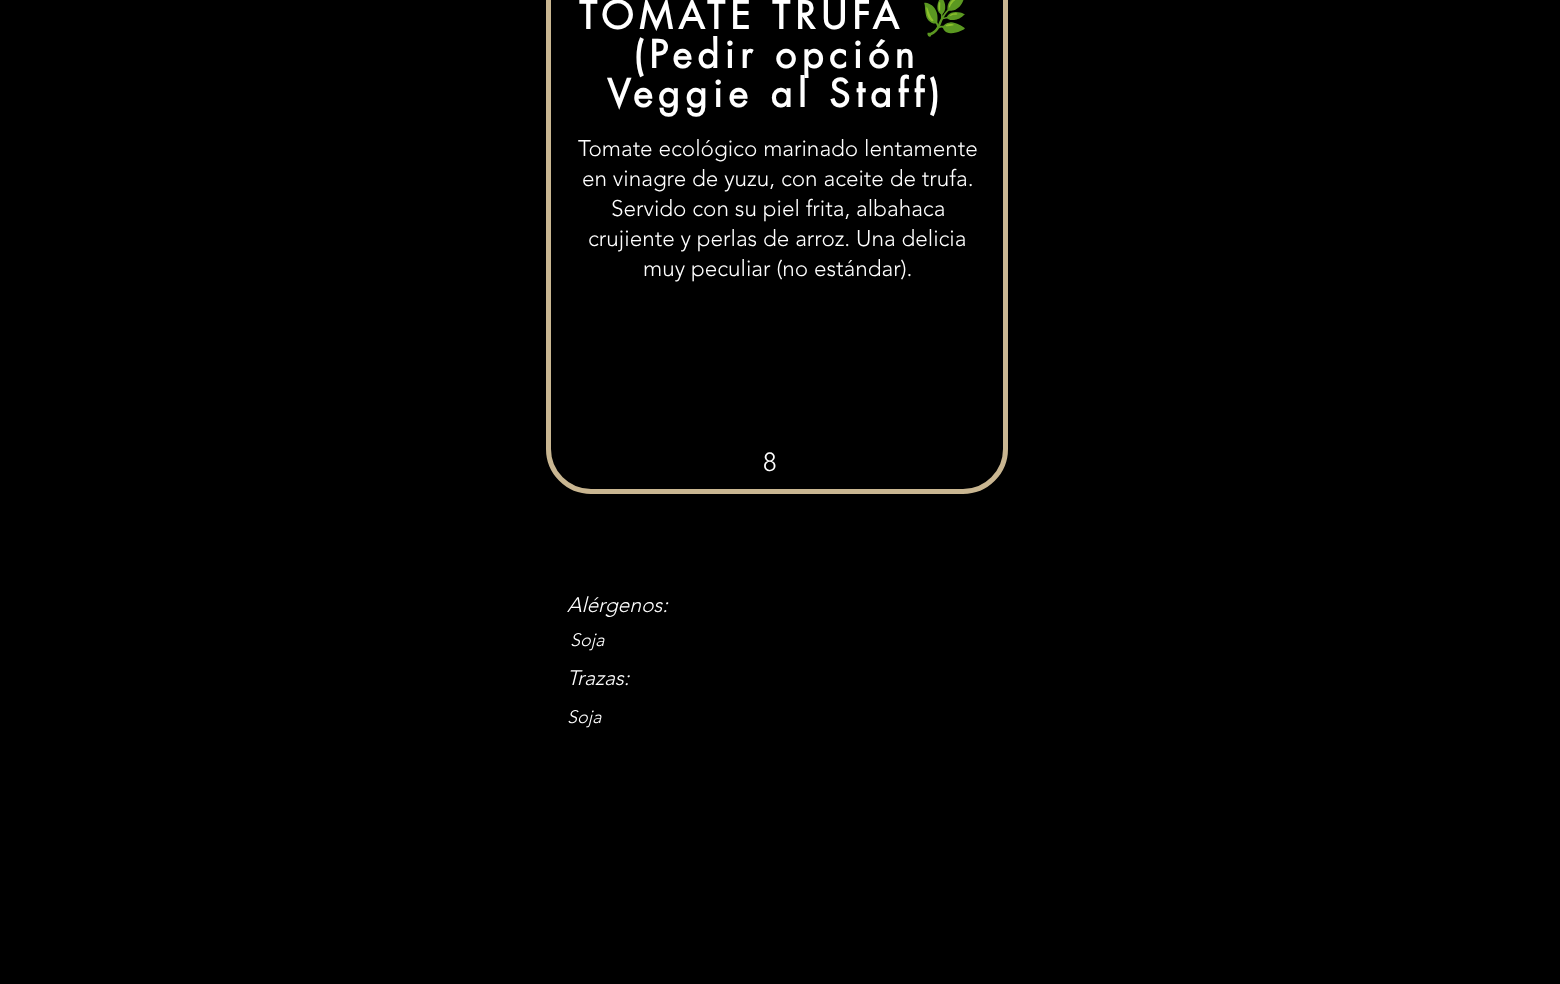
<?xml version="1.0" encoding="UTF-8"?>
<svg xmlns="http://www.w3.org/2000/svg" xmlns:xlink="http://www.w3.org/1999/xlink" width="1560" height="984">
  <rect width="100%" height="100%" fill="#000000" />
  <rect x="548.5" y="-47.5" width="457" height="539" rx="42.5" fill="none" stroke="#c9b691" stroke-width="5" />
  <text x="579" y="29" style="font-family: futura; font-size: 37.5px; font-weight: bold; letter-spacing: 5.6px; fill: #ffffff">TOMATE TRUFA</text>
  <text x="921" y="29" style="font-family: Noto Color Emoji; font-size: 37.5px; font-weight: bold; letter-spacing: 5.6px; fill: #ffffff">🌿</text>
  <text x="633" y="68" style="font-family: futura; font-size: 37.5px; font-weight: bold; letter-spacing: 5.6px; fill: #ffffff">(Pedir opción</text>
  <text x="607" y="107" style="font-family: futura; font-size: 37.5px; font-weight: bold; letter-spacing: 5.6px; fill: #ffffff">Veggie al Staff)</text>
  <text x="578" y="156" style="font-family: 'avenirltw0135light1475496'; font-size: 22.5px; font-weight: 300; fill: #ffffff">Tomate ecológico marinado lentamente</text>
  <text x="582" y="186" style="font-family: 'avenirltw0135light1475496'; font-size: 22.5px; font-weight: 300; fill: #ffffff">en vinagre de yuzu, con aceite de trufa.</text>
  <text x="611" y="216" style="font-family: 'avenirltw0135light1475496'; font-size: 22.5px; font-weight: 300; fill: #ffffff">Servido con su piel frita, albahaca</text>
  <text x="588" y="246" style="font-family: 'avenirltw0135light1475496'; font-size: 22.5px; font-weight: 300; fill: #ffffff">crujiente y perlas de arroz. Una delicia</text>
  <text x="643" y="276" style="font-family: 'avenirltw0135light1475496'; font-size: 22.5px; font-weight: 300; fill: #ffffff">muy peculiar (no estándar).</text>
  <text x="763" y="471" style="font-family: 'avenirltw0135light1475496'; font-size: 26px; font-weight: 300; fill: #ffffff">8</text>
  <text x="567" y="612" style="font-family: 'avenirltw0135light1475496'; font-size: 21px; font-weight: 300; font-style: italic; fill: #ffffff">Alérgenos:</text>
  <text x="570" y="646" style="font-family: 'avenirltw0135light1475496'; font-size: 18px; font-weight: 300; font-style: italic; fill: #ffffff">Soja</text>
  <text x="567" y="685" style="font-family: 'avenirltw0135light1475496'; font-size: 21px; font-weight: 300; font-style: italic; fill: #ffffff">Trazas:</text>
  <text x="567" y="723" style="font-family: 'avenirltw0135light1475496'; font-size: 18px; font-weight: 300; font-style: italic; fill: #ffffff">Soja</text>
</svg>
